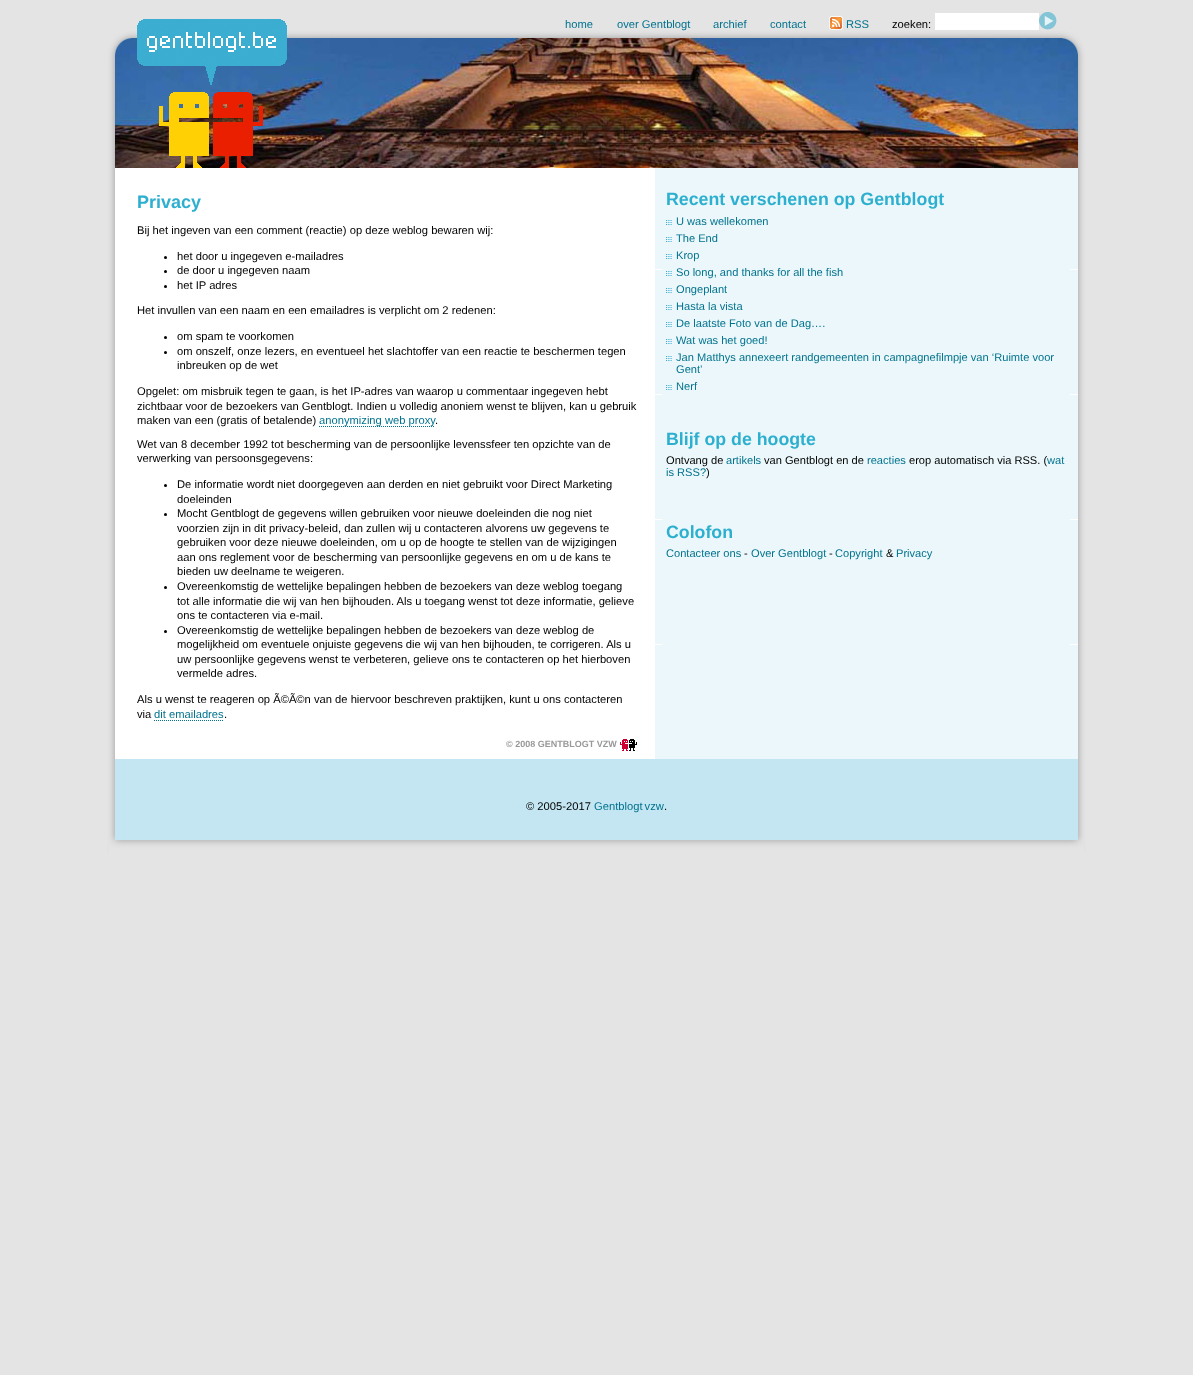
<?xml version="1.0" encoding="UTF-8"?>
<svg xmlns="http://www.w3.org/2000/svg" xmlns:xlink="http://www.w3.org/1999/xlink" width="1193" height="1375">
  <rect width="100%" height="100%" fill="#e4e4e4" />
  <image x="107" y="168" width="980" height="685" xlink:href="image1.png" />
  <image x="115" y="38" width="963" height="130" xlink:href="image2.png" />
  <image x="107" y="19" width="980" height="149" xlink:href="image3.png" />
  <image x="137" y="19" width="150" height="149" xlink:href="image4.png" />
  <image x="829" y="16" width="14" height="14" xlink:href="image5.png" />
  <rect x="935" y="13" width="104" height="17" fill="#ffffff" />
  <image x="1039" y="12" width="18" height="18" xlink:href="image6.png" />
  <circle cx="165.5" cy="257.5" r="1.5" fill="#000000" />
  <circle cx="165.5" cy="271.5" r="1.5" fill="#000000" />
  <circle cx="165.5" cy="286.5" r="1.5" fill="#000000" />
  <circle cx="165.5" cy="337.5" r="1.5" fill="#000000" />
  <circle cx="165.5" cy="352.5" r="1.5" fill="#000000" />
  <path d="M 319 426.5 h 116" fill="none" stroke="#01728e" stroke-dasharray="1 1" />
  <circle cx="165.5" cy="485.5" r="1.5" fill="#000000" />
  <circle cx="165.5" cy="514.5" r="1.5" fill="#000000" />
  <circle cx="165.5" cy="587.5" r="1.5" fill="#000000" />
  <circle cx="165.5" cy="631.5" r="1.5" fill="#000000" />
  <path d="M 154 720.5 h 70" fill="none" stroke="#01728e" stroke-dasharray="1 1" />
  <image x="620" y="739" width="17" height="12" xlink:href="image7.png" />
  <image x="666" y="220" width="6" height="5" xlink:href="image8.png" />
  <image x="666" y="237" width="6" height="5" xlink:href="image8.png" />
  <image x="666" y="254" width="6" height="5" xlink:href="image8.png" />
  <image x="666" y="271" width="6" height="5" xlink:href="image8.png" />
  <image x="666" y="288" width="6" height="5" xlink:href="image8.png" />
  <image x="666" y="305" width="6" height="5" xlink:href="image8.png" />
  <image x="666" y="322" width="6" height="5" xlink:href="image8.png" />
  <image x="666" y="339" width="6" height="5" xlink:href="image8.png" />
  <image x="666" y="356" width="6" height="5" xlink:href="image8.png" />
  <image x="666" y="385" width="6" height="5" xlink:href="image8.png" />
  <image x="109" y="759" width="975" height="94" xlink:href="image9.png" />
  <text x="565" y="28" style="font-family: Liberation Sans; font-size: 11.2px; fill: #01728e">home</text>
  <text x="617" y="28" style="font-family: Liberation Sans; font-size: 11.2px; fill: #01728e">over Gentblogt</text>
  <text x="713" y="28" style="font-family: Liberation Sans; font-size: 11.2px; fill: #01728e">archief</text>
  <text x="770" y="28" style="font-family: Liberation Sans; font-size: 11.2px; fill: #01728e">contact</text>
  <text x="846" y="28" style="font-family: Liberation Sans; font-size: 11.2px; fill: #01728e">RSS</text>
  <text x="892" y="28" style="font-family: Liberation Sans; font-size: 11.2px; fill: #000000">zoeken:</text>
  <text x="137" y="208" style="font-family: Liberation Sans; font-size: 18px; font-weight: bold; fill: #2dafcf">Privacy</text>
  <text x="137" y="234" style="font-family: Liberation Sans; font-size: 11.2px; fill: #000000">Bij het ingeven van een comment (reactie) op deze weblog bewaren wij:</text>
  <text x="177" y="260" style="font-family: Liberation Sans; font-size: 11.2px; fill: #000000">het door u ingegeven e-mailadres</text>
  <text x="177" y="274" style="font-family: Liberation Sans; font-size: 11.2px; fill: #000000">de door u ingegeven naam</text>
  <text x="177" y="289" style="font-family: Liberation Sans; font-size: 11.2px; fill: #000000">het IP adres</text>
  <text x="137" y="314" style="font-family: Liberation Sans; font-size: 11.2px; fill: #000000">Het invullen van een naam en een emailadres is verplicht om 2 redenen:</text>
  <text x="177" y="340" style="font-family: Liberation Sans; font-size: 11.2px; fill: #000000">om spam te voorkomen</text>
  <text x="177" y="355" style="font-family: Liberation Sans; font-size: 11.2px; fill: #000000">om onszelf, onze lezers, en eventueel het slachtoffer van een reactie te beschermen tegen</text>
  <text x="177" y="369" style="font-family: Liberation Sans; font-size: 11.2px; fill: #000000">inbreuken op de wet</text>
  <text x="137" y="395" style="font-family: Liberation Sans; font-size: 11.2px; fill: #000000">Opgelet: om misbruik tegen te gaan, is het IP-adres van waarop u commentaar ingegeven hebt</text>
  <text x="137" y="410" style="font-family: Liberation Sans; font-size: 11.2px; fill: #000000">zichtbaar voor de bezoekers van Gentblogt. Indien u volledig anoniem wenst te blijven, kan u gebruik</text>
  <text x="137" y="424" style="font-family: Liberation Sans; font-size: 11.2px; fill: #000000">maken van een (gratis of betalende)</text>
  <text x="319" y="424" style="font-family: Liberation Sans; font-size: 11.2px; fill: #01728e">anonymizing web proxy</text>
  <text x="435" y="424" style="font-family: Liberation Sans; font-size: 11.2px; fill: #000000">.</text>
  <text x="137" y="448" style="font-family: Liberation Sans; font-size: 11.2px; fill: #000000">Wet van 8 december 1992 tot bescherming van de persoonlijke levenssfeer ten opzichte van de</text>
  <text x="137" y="462" style="font-family: Liberation Sans; font-size: 11.2px; fill: #000000">verwerking van persoonsgegevens:</text>
  <text x="177" y="488" style="font-family: Liberation Sans; font-size: 11.2px; fill: #000000">De informatie wordt niet doorgegeven aan derden en niet gebruikt voor Direct Marketing</text>
  <text x="177" y="503" style="font-family: Liberation Sans; font-size: 11.2px; fill: #000000">doeleinden</text>
  <text x="177" y="517" style="font-family: Liberation Sans; font-size: 11.2px; fill: #000000">Mocht Gentblogt de gegevens willen gebruiken voor nieuwe doeleinden die nog niet</text>
  <text x="177" y="532" style="font-family: Liberation Sans; font-size: 11.2px; fill: #000000">voorzien zijn in dit privacy-beleid, dan zullen wij u contacteren alvorens uw gegevens te</text>
  <text x="177" y="546" style="font-family: Liberation Sans; font-size: 11.2px; fill: #000000">gebruiken voor deze nieuwe doeleinden, om u op de hoogte te stellen van de wijzigingen</text>
  <text x="177" y="561" style="font-family: Liberation Sans; font-size: 11.2px; fill: #000000">aan ons reglement voor de bescherming van persoonlijke gegevens en om u de kans te</text>
  <text x="177" y="575" style="font-family: Liberation Sans; font-size: 11.2px; fill: #000000">bieden uw deelname te weigeren.</text>
  <text x="177" y="590" style="font-family: Liberation Sans; font-size: 11.2px; fill: #000000">Overeenkomstig de wettelijke bepalingen hebben de bezoekers van deze weblog toegang</text>
  <text x="177" y="605" style="font-family: Liberation Sans; font-size: 11.2px; fill: #000000">tot alle informatie die wij van hen bijhouden. Als u toegang wenst tot deze informatie, gelieve</text>
  <text x="177" y="619" style="font-family: Liberation Sans; font-size: 11.2px; fill: #000000">ons te contacteren via e-mail.</text>
  <text x="177" y="634" style="font-family: Liberation Sans; font-size: 11.2px; fill: #000000">Overeenkomstig de wettelijke bepalingen hebben de bezoekers van deze weblog de</text>
  <text x="177" y="648" style="font-family: Liberation Sans; font-size: 11.2px; fill: #000000">mogelijkheid om eventuele onjuiste gegevens die wij van hen bijhouden, te corrigeren. Als u</text>
  <text x="177" y="663" style="font-family: Liberation Sans; font-size: 11.2px; fill: #000000">uw persoonlijke gegevens wenst te verbeteren, gelieve ons te contacteren op het hierboven</text>
  <text x="177" y="677" style="font-family: Liberation Sans; font-size: 11.2px; fill: #000000">vermelde adres.</text>
  <text x="137" y="703" style="font-family: Liberation Sans; font-size: 11.2px; fill: #000000">Als u wenst te reageren op Ã©Ã©n van de hiervoor beschreven praktijken, kunt u ons contacteren</text>
  <text x="137" y="718" style="font-family: Liberation Sans; font-size: 11.2px; fill: #000000">via</text>
  <text x="154" y="718" style="font-family: Liberation Sans; font-size: 11.2px; fill: #01728e">dit emailadres</text>
  <text x="224" y="718" style="font-family: Liberation Sans; font-size: 11.2px; fill: #000000">.</text>
  <text x="506" y="747" style="font-family: Liberation Sans; font-size: 9px; font-weight: bold; fill: #999999">© 2008 GENTBLOGT VZW</text>
  <text x="666" y="205" style="font-family: Liberation Sans; font-size: 17.75px; font-weight: bold; fill: #2dafcf">Recent verschenen op Gentblogt</text>
  <text x="676" y="225" style="font-family: Liberation Sans; font-size: 11.1px; fill: #01728e">U was wellekomen</text>
  <text x="676" y="242" style="font-family: Liberation Sans; font-size: 11.1px; fill: #01728e">The End</text>
  <text x="676" y="259" style="font-family: Liberation Sans; font-size: 11.1px; fill: #01728e">Krop</text>
  <text x="676" y="276" style="font-family: Liberation Sans; font-size: 11.1px; fill: #01728e">So long, and thanks for all the fish</text>
  <text x="676" y="293" style="font-family: Liberation Sans; font-size: 11.1px; fill: #01728e">Ongeplant</text>
  <text x="676" y="310" style="font-family: Liberation Sans; font-size: 11.1px; fill: #01728e">Hasta la vista</text>
  <text x="676" y="327" style="font-family: Liberation Sans; font-size: 11.1px; fill: #01728e">De laatste Foto van de Dag….</text>
  <text x="676" y="344" style="font-family: Liberation Sans; font-size: 11.1px; fill: #01728e">Wat was het goed!</text>
  <text x="676" y="361" style="font-family: Liberation Sans; font-size: 11.1px; fill: #01728e">Jan Matthys annexeert randgemeenten in campagnefilmpje van ‘Ruimte voor</text>
  <text x="676" y="373" style="font-family: Liberation Sans; font-size: 11.1px; fill: #01728e">Gent’</text>
  <text x="676" y="390" style="font-family: Liberation Sans; font-size: 11.1px; fill: #01728e">Nerf</text>
  <text x="666" y="445" style="font-family: Liberation Sans; font-size: 17.75px; font-weight: bold; fill: #2dafcf">Blijf op de hoogte</text>
  <text x="666" y="464" style="font-family: Liberation Sans; font-size: 11.1px; fill: #000000">Ontvang de</text>
  <text x="726" y="464" style="font-family: Liberation Sans; font-size: 11.1px; fill: #01728e">artikels</text>
  <text x="764" y="464" style="font-family: Liberation Sans; font-size: 11.1px; fill: #000000">van Gentblogt en de</text>
  <text x="867" y="464" style="font-family: Liberation Sans; font-size: 11.1px; fill: #01728e">reacties</text>
  <text x="909" y="464" style="font-family: Liberation Sans; font-size: 11.1px; fill: #000000">erop automatisch via RSS. (</text>
  <text x="1047" y="464" style="font-family: Liberation Sans; font-size: 11.1px; fill: #01728e">wat</text>
  <text x="666" y="476" style="font-family: Liberation Sans; font-size: 11.1px; fill: #01728e">is RSS?</text>
  <text x="706" y="476" style="font-family: Liberation Sans; font-size: 11.1px; fill: #000000">)</text>
  <text x="666" y="538" style="font-family: Liberation Sans; font-size: 17.75px; font-weight: bold; fill: #2dafcf">Colofon</text>
  <text x="666" y="557" style="font-family: Liberation Sans; font-size: 11.1px; fill: #01728e">Contacteer ons</text>
  <text x="744" y="557" style="font-family: Liberation Sans; font-size: 11.1px; fill: #000000">-</text>
  <text x="751" y="557" style="font-family: Liberation Sans; font-size: 11.1px; fill: #01728e">Over Gentblogt</text>
  <text x="829" y="557" style="font-family: Liberation Sans; font-size: 11.1px; fill: #000000">-</text>
  <text x="835" y="557" style="font-family: Liberation Sans; font-size: 11.1px; fill: #01728e">Copyright</text>
  <text x="886" y="557" style="font-family: Liberation Sans; font-size: 11.1px; fill: #000000">&amp;</text>
  <text x="896" y="557" style="font-family: Liberation Sans; font-size: 11.1px; fill: #01728e">Privacy</text>
  <text x="526" y="810" style="font-family: Liberation Sans; font-size: 11.2px; fill: #000000">© 2005-2017</text>
  <text x="594" y="810" word-spacing="-1" style="font-family: Liberation Sans; font-size: 11.2px; fill: #01728e">Gentblogt vzw</text>
  <text x="664" y="810" style="font-family: Liberation Sans; font-size: 11.2px; fill: #000000">.</text>
</svg>
